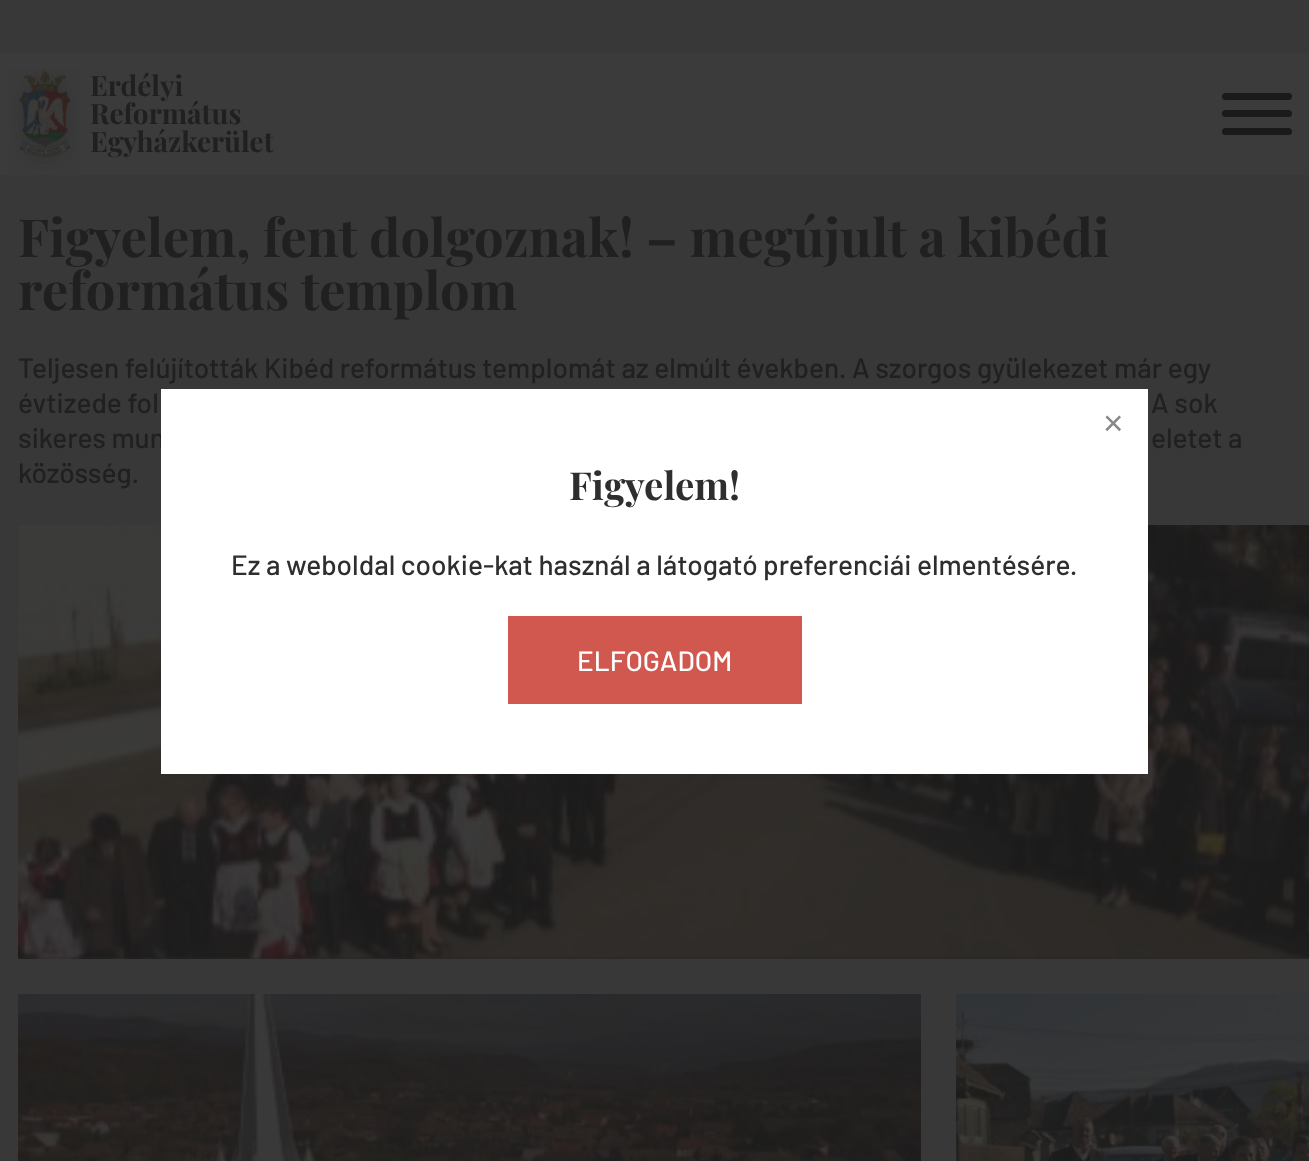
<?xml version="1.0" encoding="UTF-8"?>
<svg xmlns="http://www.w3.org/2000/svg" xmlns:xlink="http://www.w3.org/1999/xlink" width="1309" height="1161">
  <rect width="100%" height="100%" fill="#393838" />
  <rect y="53" width="1309" height="122" fill="#3b3b3b" />
  <image x="8" y="68" width="73" height="106" xlink:href="image1.png" />
  <rect x="1222" y="93" width="70" height="7" rx="3.5" fill="#1a1a1a" />
  <rect x="1222" y="110" width="70" height="7" rx="3.5" fill="#1a1a1a" />
  <rect x="1222" y="128" width="70" height="7" rx="3.5" fill="#1a1a1a" />
  <rect x="18" y="956" width="1291" height="3" fill="#272727" />
  <image x="18" y="525" width="1291" height="434" xlink:href="image2.png" />
  <image x="18" y="994" width="903" height="167" xlink:href="image3.png" />
  <image x="956" y="994" width="353" height="167" xlink:href="image4.png" />
  <text x="90" y="96" style="font-family: Playfair Display; font-size: 28px; font-weight: bold; fill: #202020">Erdélyi</text>
  <text x="90" y="124" style="font-family: Playfair Display; font-size: 28px; font-weight: bold; fill: #202020">Református</text>
  <text x="90" y="152" style="font-family: Playfair Display; font-size: 28px; font-weight: bold; fill: #202020">Egyházkerület</text>
  <text x="18" y="257" style="font-family: Playfair Display; font-size: 52.5px; font-weight: bold; fill: #202020">Figyelem, fent dolgoznak! – megújult a kibédi</text>
  <text x="18" y="310" style="font-family: Playfair Display; font-size: 52.5px; font-weight: bold; fill: #202020">református templom</text>
  <text x="18" y="378" style="font-family: Barlow; font-size: 28px; font-weight: 500; fill: #202020">Teljesen felújították Kibéd református templomát az elmúlt években. A szorgos gyülekezet már egy</text>
  <text x="18" y="413" style="font-family: Barlow; font-size: 28px; font-weight: 500; fill: #202020">évtizede fol</text>
  <text x="1151" y="413" style="font-family: Barlow; font-size: 28px; font-weight: 500; fill: #202020">A sok</text>
  <text x="18" y="448" style="font-family: Barlow; font-size: 28px; font-weight: 500; fill: #202020">sikeres mun</text>
  <text x="1151" y="448" style="font-family: Barlow; font-size: 28px; font-weight: 500; fill: #202020">eletet a</text>
  <text x="18" y="483" style="font-family: Barlow; font-size: 28px; font-weight: 500; fill: #202020">közösség.</text>
  <rect x="161" y="389" width="987" height="385" fill="#ffffff" />
  <text x="1103" y="435" style="font-family: Liberation Sans; font-size: 35px; fill: #888888">×</text>
  <text x="569" y="500" style="font-family: Playfair Display; font-size: 38.5px; font-weight: bold; fill: #2e2e2e">Figyelem!</text>
  <text x="231" y="575" style="font-family: Barlow; font-size: 28px; font-weight: 500; fill: #2e2e2e">Ez a weboldal cookie-kat használ a látogató preferenciái elmentésére.</text>
  <rect x="508" y="616" width="294" height="88" fill="#d1584f" />
  <text x="577" y="671" style="font-family: Barlow; font-size: 28px; font-weight: 500; fill: #ffffff">ELFOGADOM</text>
</svg>
